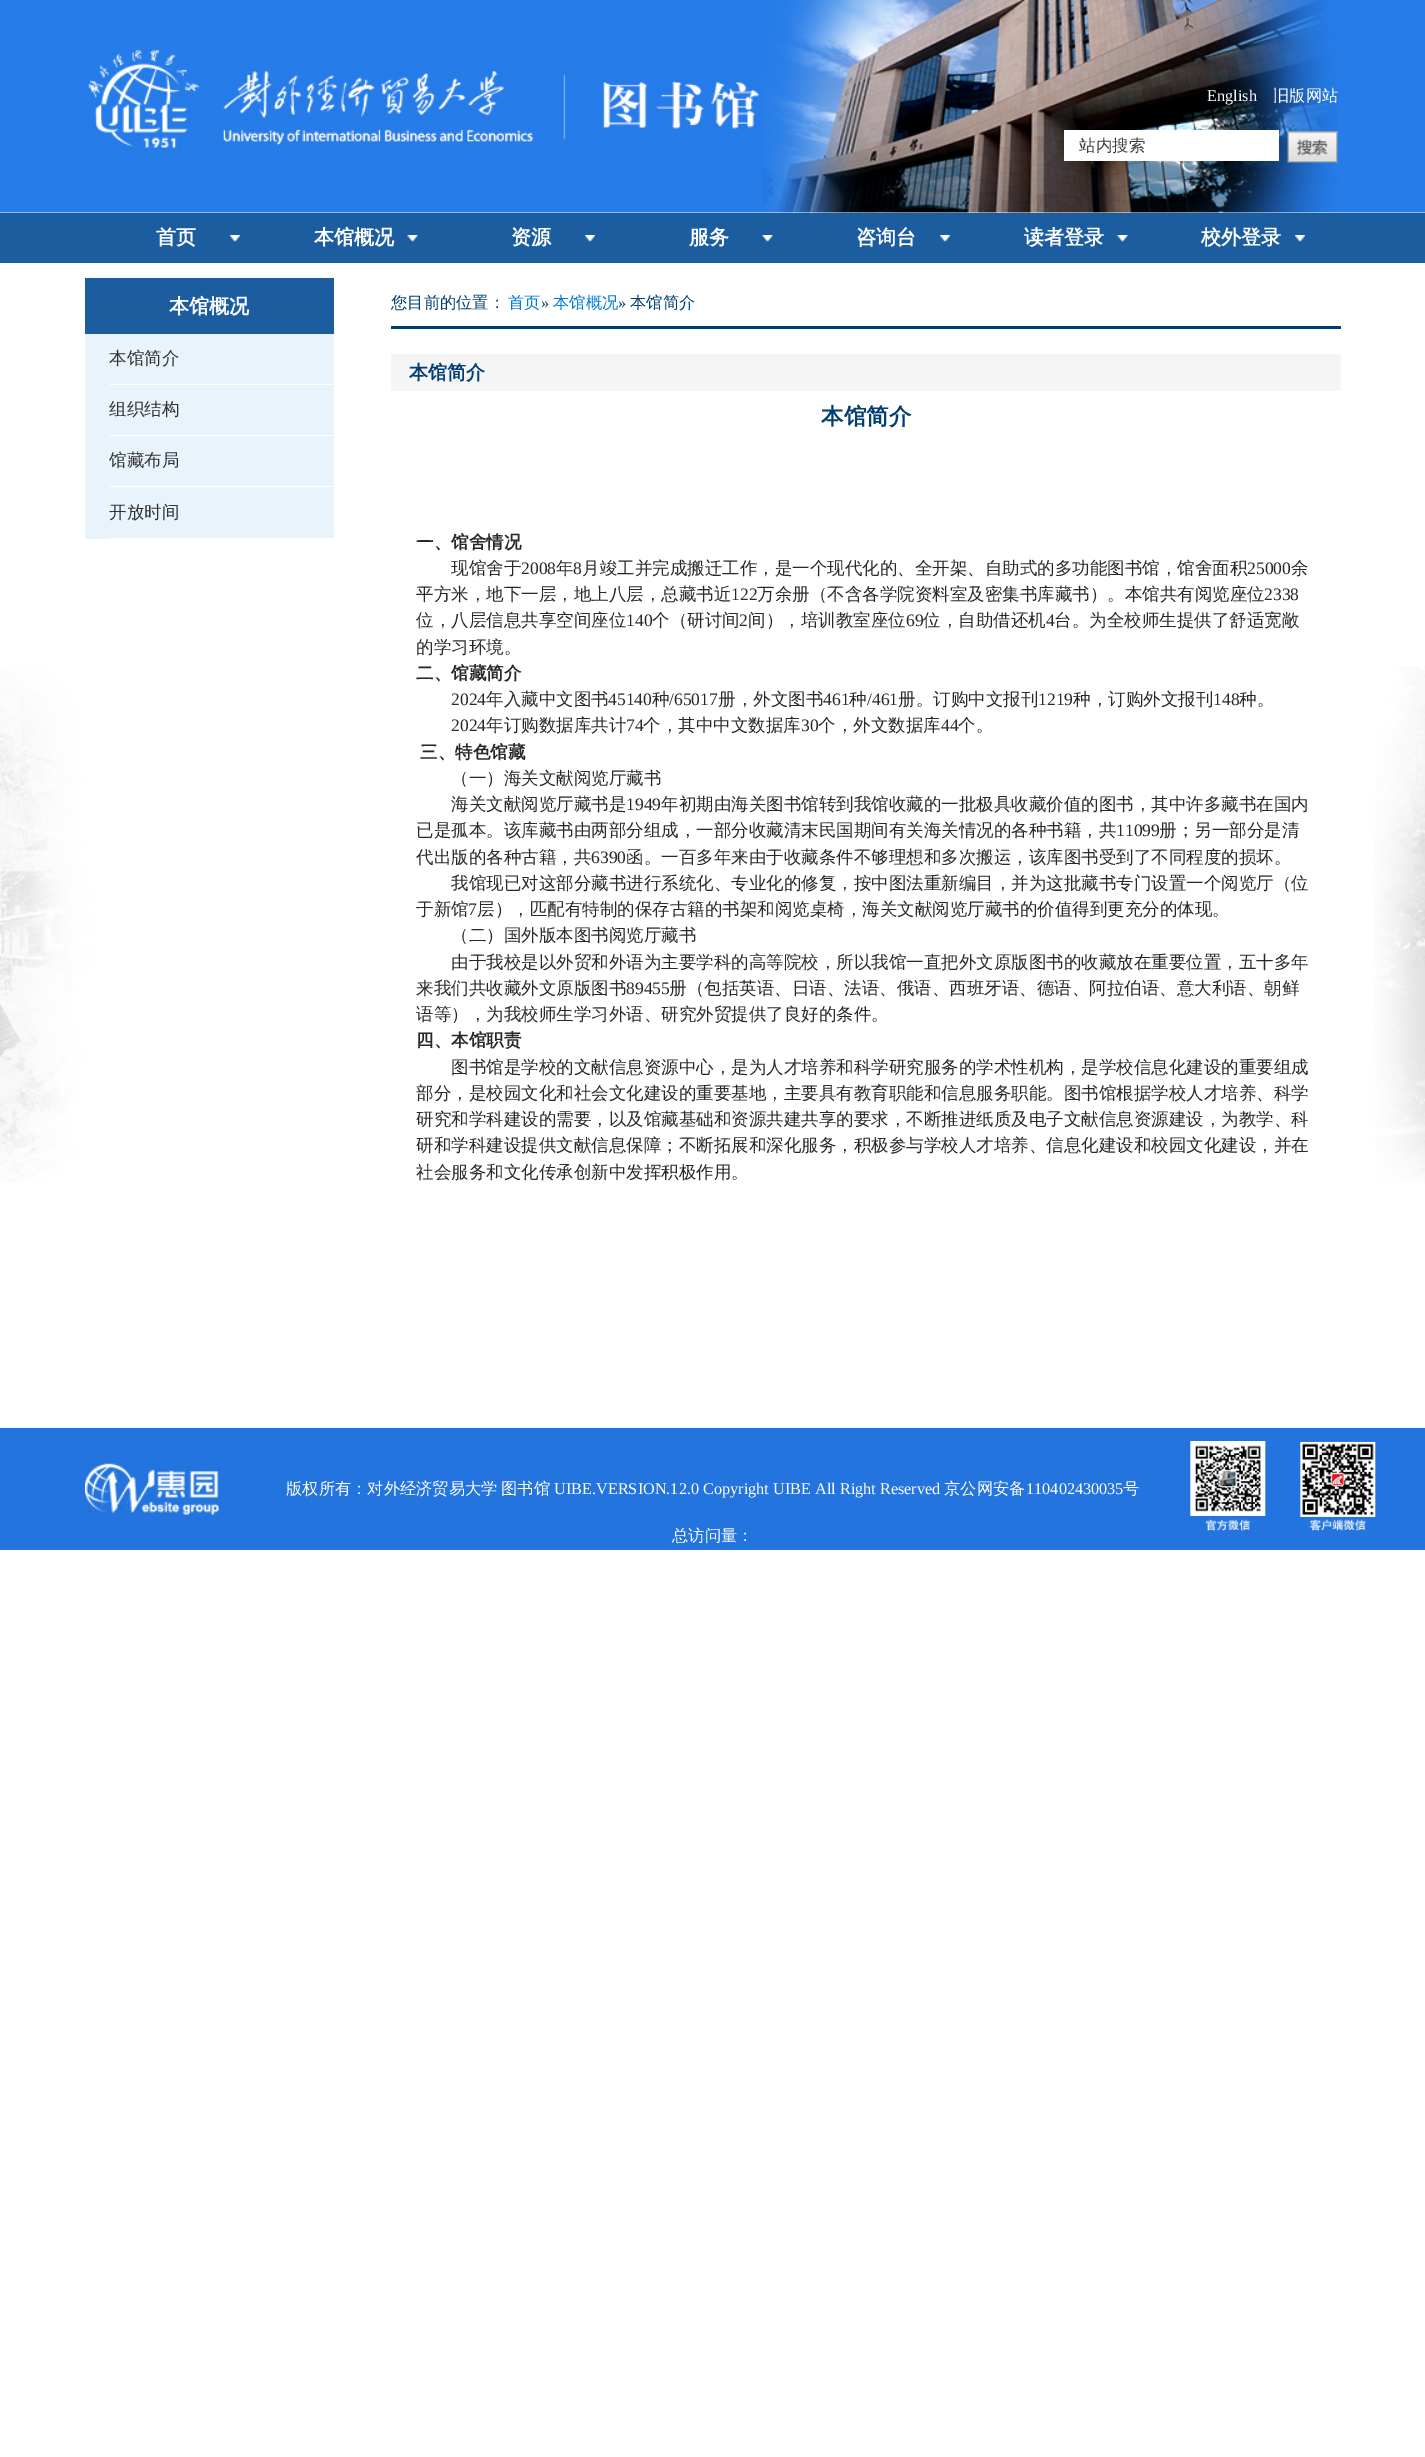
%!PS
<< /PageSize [1425 2457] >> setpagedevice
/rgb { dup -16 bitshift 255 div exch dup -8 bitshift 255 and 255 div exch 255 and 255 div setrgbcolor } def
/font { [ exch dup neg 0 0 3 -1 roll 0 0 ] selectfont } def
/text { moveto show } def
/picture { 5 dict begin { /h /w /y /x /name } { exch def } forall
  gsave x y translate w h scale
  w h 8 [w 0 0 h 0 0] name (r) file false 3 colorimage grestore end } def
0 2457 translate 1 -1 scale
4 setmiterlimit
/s1 { /LiberationSerif-Regular 16.25 font 16#FFFFFF rgb } def
/s2 { /WenQuanYiZenHei-Medium 16.25 font 16#FFFFFF rgb } def
/s3 { /WenQuanYiZenHei-Medium 16.5 font 16#3F3F3C rgb } def
/s4 { /WenQuanYiZenHei-Bold 20 font 16#FFFFFF rgb } def
/s5 { /WenQuanYiZenHei-Medium 17.5 font 16#323232 rgb } def
/s6 { /WenQuanYiZenHei-Medium 16.25 font 16#003E74 rgb } def
/s7 { /WenQuanYiZenHei-Medium 16.25 font 16#007CD2 rgb } def
/s8 { /LiberationSerif-Regular 16.25 font 16#003E74 rgb } def
/s9 { /WenQuanYiZenHei-Bold 19 font 16#003E74 rgb } def
/s10 { /WenQuanYiZenHei-Bold 22.5 font 16#003E74 rgb } def
/s11 { /WenQuanYiZenHei-Bold 17.5 font 16#282828 rgb } def
/s12 { /WenQuanYiZenHei-Medium 17.5 font 16#282828 rgb } def
/s13 { /LiberationSerif-Regular 17.5 font 16#282828 rgb } def
16#FFFFFF rgb
0 0 1425 2457 rectfill
(pic1.raw) 0 0 1425 213 picture
s1
(English) 1207 101 text
s2
(旧版网站) 1273 101 text
(pic2.raw) 1287 131 51 32 picture
1064 130 215 31 rectfill
s3
(站内搜索) 1079 151 text
16#1B5D9E rgb
0 213 1425 50 rectfill
(pic3.raw) 230 235 10 7 picture
s4
(首页) 156 244 text
(pic4.raw) 407 235 11 7 picture
(本馆概况) 314 244 text
(pic5.raw) 585 235 10 7 picture
(资源) 511 244 text
(pic4.raw) 762 235 11 7 picture
(服务) 689 244 text
(pic5.raw) 940 235 10 7 picture
(咨询台) 856 244 text
(pic4.raw) 1117 235 11 7 picture
(读者登录) 1024 244 text
(pic5.raw) 1295 235 10 7 picture
(校外登录) 1201 244 text
(pic6.raw) 0 666 1425 517 picture
16#1B5D9E rgb
85 278 249 56 rectfill
s4
(本馆概况) 169 313 text
16#E8F3FB rgb
85 334 249 205 rectfill
16#FFFFFF rgb
110 384 224 1 rectfill
s5
(本馆简介) 109 364 text
16#FFFFFF rgb
110 435 224 1 rectfill
s5
(组织结构) 109 415 text
16#FFFFFF rgb
110 486 224 1 rectfill
s5
(馆藏布局) 109 466 text
16#FFFFFF rgb
110 538 224 1 rectfill
s5
(开放时间) 109 518 text
16#003E74 rgb
391 326 950 3 rectfill
s6
(您目前的位置：) 391 308 text
s7
(首页) 508 308 text
s8
(») 541 308 text
s7
(本馆概况) 553 308 text
s8
(») 618 308 text
s6
(本馆简介) 630 308 text
16#F5F5F5 rgb
391 354 950 37 rectfill
s9
(本馆简介) 409 379 text
s10
(本馆简介) 821 424 text
s11
(一、馆舍情况) 416 548 text
s12
(现馆舍于) 451 574 text
s13
(2008) 521 574 text
s12
(年) 556 574 text
s13
(8) 573 574 text
s12
(月竣工并完成搬迁工作，是一个现代化的、全开架、自助式的多功能图书馆，馆舍面积) 582 574 text
s13
(25000) 1247 574 text
s12
(余) 1291 574 text
(平方米，地下一层，地上八层，总藏书近) 416 600 text
s13
(122) 731 600 text
s12
(万余册（不含各学院资料室及密集书库藏书）。本馆共有阅览座位) 757 600 text
s13
(2338) 1264 600 text
s12
(位，八层信息共享空间座位) 416 626 text
s13
(140) 626 626 text
s12
(个（研讨间) 652 626 text
s13
(2) 739 626 text
s12
(间），培训教室座位) 748 626 text
s13
(69) 906 626 text
s12
(位，自助借还机) 923 626 text
s13
(4) 1046 626 text
s12
(台。为全校师生提供了舒适宽敞) 1054 626 text
(的学习环境。) 416 653 text
s11
(二、馆藏简介) 416 679 text
s13
(2024) 451 705 text
s12
(年入藏中文图书) 486 705 text
s13
(45140) 608 705 text
s12
(种) 652 705 text
s13
(/65017) 669 705 text
s12
(册，外文图书) 718 705 text
s13
(461) 823 705 text
s12
(种) 849 705 text
s13
(/461) 867 705 text
s12
(册。订购中文报刊) 898 705 text
s13
(1219) 1038 705 text
s12
(种，订购外文报刊) 1073 705 text
s13
(148) 1213 705 text
s12
(种。) 1239 705 text
s13
(2024) 451 731 text
s12
(年订购数据库共计) 486 731 text
s13
(74) 626 731 text
s12
(个，其中中文数据库) 643 731 text
s13
(30) 801 731 text
s12
(个，外文数据库) 818 731 text
s13
(44) 941 731 text
s12
(个。) 958 731 text
s11
(三、特色馆藏) 420 758 text
s12
(（一）海关文献阅览厅藏书) 451 784 text
(海关文献阅览厅藏书是) 451 810 text
s13
(1949) 626 810 text
s12
(年初期由海关图书馆转到我馆收藏的一批极具收藏价值的图书，其中许多藏书在国内) 661 810 text
(已是孤本。该库藏书由两部分组成，一部分收藏清末民国期间有关海关情况的各种书籍，共) 416 836 text
s13
(11099) 1116 836 text
s12
(册；另一部分是清) 1159 836 text
(代出版的各种古籍，共) 416 863 text
s13
(6390) 591 863 text
s12
(函。一百多年来由于收藏条件不够理想和多次搬运，该库图书受到了不同程度的损坏。) 626 863 text
(我馆现已对这部分藏书进行系统化、专业化的修复，按中图法重新编目，并为这批藏书专门设置一个阅览厅（位) 451 889 text
(于新馆) 416 915 text
s13
(7) 468 915 text
s12
(层），匹配有特制的保存古籍的书架和阅览桌椅，海关文献阅览厅藏书的价值得到更充分的体现。) 477 915 text
(（二）国外版本图书阅览厅藏书) 451 941 text
(由于我校是以外贸和外语为主要学科的高等院校，所以我馆一直把外文原版图书的收藏放在重要位置，五十多年) 451 968 text
(来我们共收藏外文原版图书) 416 994 text
s13
(89455) 626 994 text
s12
(册（包括英语、日语、法语、俄语、西班牙语、德语、阿拉伯语、意大利语、朝鲜) 669 994 text
(语等），为我校师生学习外语、研究外贸提供了良好的条件。) 416 1020 text
s11
(四、本馆职责) 416 1046 text
s12
(图书馆是学校的文献信息资源中心，是为人才培养和科学研究服务的学术性机构，是学校信息化建设的重要组成) 451 1073 text
(部分，是校园文化和社会文化建设的重要基地，主要具有教育职能和信息服务职能。图书馆根据学校人才培养、科学) 416 1099 text
(研究和学科建设的需要，以及馆藏基础和资源共建共享的要求，不断推进纸质及电子文献信息资源建设，为教学、科) 416 1125 text
(研和学科建设提供文献信息保障；不断拓展和深化服务，积极参与学校人才培养、信息化建设和校园文化建设，并在) 416 1151 text
(社会服务和文化传承创新中发挥积极作用。) 416 1178 text
16#2374DE rgb
0 1428 1425 122 rectfill
(pic7.raw) 85 1463 134 52 picture
s2
(版权所有：对外经济贸易大学) 286 1494 text
(图书馆) 501 1494 text
s1
(UIBE.VERSION.12.0 Copyright UIBE All Right Reserved) 554 1494 text
s2
(京公网安备) 944 1494 text
s1
(110402430035) 1026 1494 text
s2
(号) 1123 1494 text
(pic8.raw) 1190 1441 76 90 picture
(pic9.raw) 1300 1441 76 90 picture
(总访问量：) 672 1541 text
showpage
